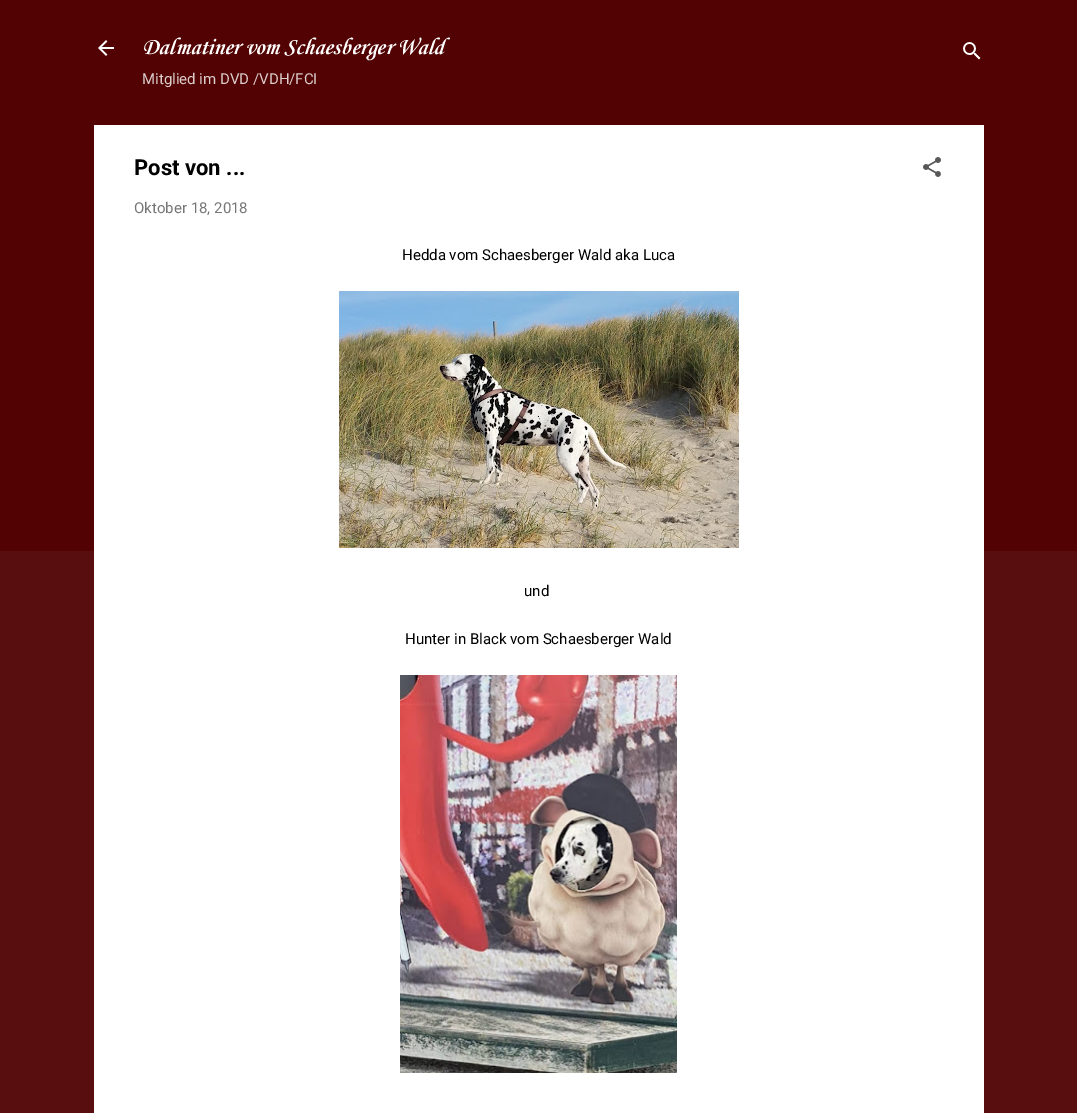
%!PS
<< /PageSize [1077 1113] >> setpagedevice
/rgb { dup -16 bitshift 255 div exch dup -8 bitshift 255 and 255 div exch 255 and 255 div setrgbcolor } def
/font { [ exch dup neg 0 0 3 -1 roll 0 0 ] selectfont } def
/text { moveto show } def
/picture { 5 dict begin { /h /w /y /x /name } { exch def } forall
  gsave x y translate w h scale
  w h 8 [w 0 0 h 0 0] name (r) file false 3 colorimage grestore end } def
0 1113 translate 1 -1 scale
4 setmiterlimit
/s1 { /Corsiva-BoldItalic 24 font 16#FFFFFF rgb } def
/s2 { /Roboto-Regular 15 font 16#DCCCCC rgb } def
/s3 { /Roboto-Bold 22 font 16#000000 rgb } def
/s4 { /Roboto-Regular 15 font 16#767676 rgb } def
/s5 { /Roboto-Regular 15 font 16#000000 rgb } def
16#580E0E rgb
0 0 1077 1113 rectfill
16#520202 rgb
0 0 1077 551 rectfill
(pic1.raw) 98 40 16 16 picture
s1
(Dalmatiner vom Schaesberger Wald) 142 54 text
s2
(Mitglied im DVD /VDH/FCI) 142 84 text
(pic2.raw) 963 42 18 18 picture
16#FFFFFF rgb
94 125 890 988 rectfill
s3
(Post von ...) 134 175 text
(pic3.raw) 923 157 18 20 picture
s4
(Oktober 18, 2018) 134 213 text
s5
(Hedda vom Schaesberger Wald aka Luca) 402 260 text
(pic4.raw) 339 291 400 257 picture
(und) 524 596 text
(Hunter in Black vom Schaesberger Wald) 405 644 text
(pic5.raw) 400 675 277 398 picture
showpage
